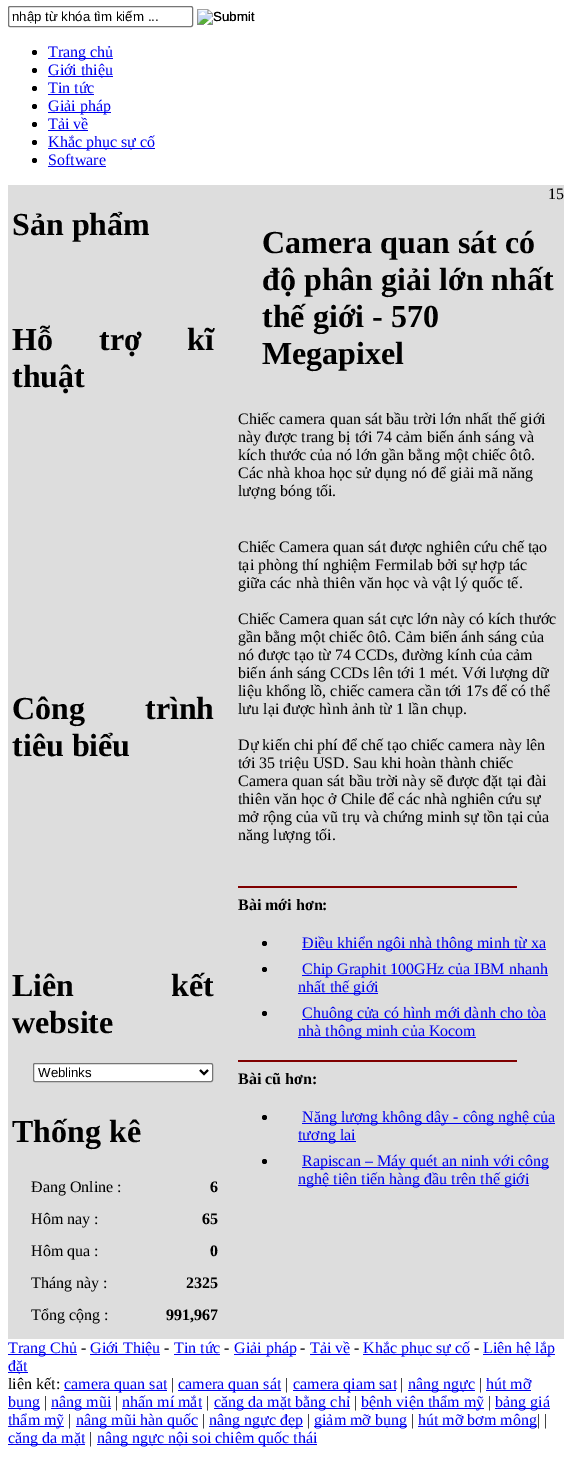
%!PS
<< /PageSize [572 1471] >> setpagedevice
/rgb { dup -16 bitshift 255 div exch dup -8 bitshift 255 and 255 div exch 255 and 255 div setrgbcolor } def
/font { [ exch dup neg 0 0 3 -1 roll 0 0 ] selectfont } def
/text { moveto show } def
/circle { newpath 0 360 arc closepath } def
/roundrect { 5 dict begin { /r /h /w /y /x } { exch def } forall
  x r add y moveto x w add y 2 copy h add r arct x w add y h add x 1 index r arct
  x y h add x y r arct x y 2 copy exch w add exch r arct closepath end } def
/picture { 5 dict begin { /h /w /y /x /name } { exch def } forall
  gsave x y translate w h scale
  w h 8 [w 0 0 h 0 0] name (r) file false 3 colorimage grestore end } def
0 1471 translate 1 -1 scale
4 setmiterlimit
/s1 { /LiberationSans-Regular 13.25 font 16#000000 rgb } def
/s2 { /LiberationSerif-Regular 16 font 16#0000EE rgb } def
/s3 { /LiberationSerif-Bold 32 font 16#000000 rgb } def
/s4 { /LiberationSerif-Regular 16 font 16#000000 rgb } def
/s5 { /LiberationSerif-Bold 16 font 16#000000 rgb } def
16#FFFFFF rgb
0 0 572 1471 rectfill
16#767676 rgb
8.5 6.5 184 20 1.5 roundrect stroke
s1
(nhập từ khóa tìm kiếm ...) 12 21 text
(pic1.raw) 197 9 57 16 picture
(Submit) 213 21 text
34.5 52.5 2.5 circle fill
16#0000EE rgb
48 58 65 1 rectfill
s2
(Trang chủ) 48 57 text
16#000000 rgb
34.5 70.5 2.5 circle fill
16#0000EE rgb
48 76 65 1 rectfill
(Giới thiệu) 48 75 text
16#000000 rgb
34.5 88.5 2.5 circle fill
s2
(Tin tức) 48 93 text
48 94 46 1 rectfill
16#000000 rgb
34.5 106.5 2.5 circle fill
16#0000EE rgb
48 112 63 1 rectfill
(Giải pháp) 48 111 text
16#000000 rgb
34.5 124.5 2.5 circle fill
s2
(Tải về) 48 129 text
48 130 40 1 rectfill
16#000000 rgb
34.5 142.5 2.5 circle fill
16#0000EE rgb
48 148 107 1 rectfill
(Khắc phục sự cố) 48 147 text
16#000000 rgb
34.5 160.5 2.5 circle fill
s2
(Software) 48 165 text
48 166 58 1 rectfill
16#DDDDDD rgb
8 185 556 1154 rectfill
s3
(Sản phẩm) 12 235 text
12 350 moveto 38 0 32 (Hỗ trợ kĩ) widthshow
(thuật) 12 387 text
12 719 moveto 52 0 32 (Công trình) widthshow
(tiêu biểu) 12 756 text
12 996 moveto 89 0 32 (Liên kết) widthshow
(website) 12 1033 text
16#FFFFFF rgb
33.5 1063.5 179 18 1.5 roundrect gsave fill grestore
16#767676 rgb
stroke
16#000000 rgb
2 setlinewidth
200 1070 moveto 204 1074 lineto 208 1070 lineto stroke
s1
(Weblinks) 38 1077 text
s3
(Thống kê) 12 1142 text
s4
(Đang Online :) 31 1192 text
s5
(6) 210 1192 text
s4
(Hôm nay :) 31 1224 text
s5
(65) 202 1224 text
s4
(Hôm qua :) 31 1256 text
s5
(0) 210 1256 text
s4
(Tháng này :) 31 1288 text
s5
(2325) 186 1288 text
s4
(Tổng cộng :) 31 1320 text
s5
(991,967) 166 1320 text
s4
(15) 548 199 text
s3
(Camera quan sát có) 262 253 text
(độ phân giải lớn nhất) 262 290 text
(thế giới - 570) 262 327 text
(Megapixel) 262 364 text
s4
(Chiếc camera quan sát bầu trời lớn nhất thế giới) 238 424 text
(này được trang bị tới 74 cảm biến ánh sáng và) 238 442 text
(kích thước của nó lớn gần bằng một chiếc ôtô.) 238 460 text
(Các nhà khoa học sử dụng nó để giải mã năng) 238 478 text
(lượng bóng tối.) 238 496 text
(Chiếc Camera quan sát được nghiên cứu chế tạo) 238 552 text
(tại phòng thí nghiệm Fermilab bởi sự hợp tác) 238 570 text
(giữa các nhà thiên văn học và vật lý quốc tế.) 238 588 text
(Chiếc Camera quan sát cực lớn này có kích thước) 238 624 text
(gần bằng một chiếc ôtô. Cảm biến ánh sáng của) 238 642 text
(nó được tạo từ 74 CCDs, đường kính của cảm) 238 660 text
(biến ánh sáng CCDs lên tới 1 mét. Với lượng dữ) 238 678 text
(liệu khổng lồ, chiếc camera cần tới 17s để có thể) 238 696 text
(lưu lại được hình ảnh từ 1 lần chụp.) 238 714 text
(Dự kiến chi phí để chế tạo chiếc camera này lên) 238 750 text
(tới 35 triệu USD. Sau khi hoàn thành chiếc) 238 768 text
(Camera quan sát bầu trời này sẽ được đặt tại đài) 238 786 text
(thiên văn học ở Chile để các nhà nghiên cứu sự) 238 804 text
(mở rộng của vũ trụ và chứng minh sự tồn tại của) 238 822 text
(năng lượng tối.) 238 840 text
16#800000 rgb
238 886 279 2 rectfill
s5
(Bài mới hơn:) 238 910 text
264.5 943.5 2.5 circle fill
16#0000EE rgb
302 949 244 1 rectfill
s2
(Điều khiển ngôi nhà thông minh từ xa) 302 948 text
16#000000 rgb
264.5 969.5 2.5 circle fill
16#0000EE rgb
302 975 246 1 rectfill
(Chip Graphit 100GHz của IBM nhanh) 302 974 text
298 993 80 1 rectfill
(nhất thế giới) 298 992 text
16#000000 rgb
264.5 1013.5 2.5 circle fill
16#0000EE rgb
302 1019 244 1 rectfill
(Chuông cửa có hình mới dành cho tòa) 302 1018 text
298 1037 178 1 rectfill
(nhà thông minh của Kocom) 298 1036 text
16#800000 rgb
238 1060 279 2 rectfill
s5
(Bài cũ hơn:) 238 1084 text
264.5 1117.5 2.5 circle fill
16#0000EE rgb
302 1123 253 1 rectfill
s2
(Năng lượng không dây - công nghệ của) 302 1122 text
298 1141 58 1 rectfill
(tương lai) 298 1140 text
16#000000 rgb
264.5 1161.5 2.5 circle fill
16#0000EE rgb
302 1167 247 1 rectfill
(Rapiscan – Máy quét an ninh với công) 302 1166 text
298 1185 231 1 rectfill
(nghệ tiên tiến hàng đầu trên thế giới) 298 1184 text
8 1354 69 1 rectfill
(Trang Chủ) 8 1353 text
s4
(-) 81 1353 text
16#0000EE rgb
90 1354 70 1 rectfill
(Giới Thiệu) 90 1353 text
s4
(-) 164 1353 text
s2
(Tin tức) 174 1353 text
174 1354 46 1 rectfill
s4
(-) 224 1353 text
16#0000EE rgb
234 1354 62 1 rectfill
(Giải pháp) 234 1353 text
s4
(-) 300 1353 text
s2
(Tải về) 310 1353 text
310 1354 40 1 rectfill
s4
(-) 354 1353 text
16#0000EE rgb
363 1354 107 1 rectfill
(Khắc phục sự cố) 363 1353 text
s4
(-) 474 1353 text
16#0000EE rgb
483 1354 72 1 rectfill
(Liên hệ lắp) 483 1353 text
8 1372 20 1 rectfill
(đặt) 8 1371 text
s4
(liên kết:) 8 1389 text
16#0000EE rgb
64 1390 103 1 rectfill
(camera quan sat) 64 1389 text
s4
(|) 171 1389 text
16#0000EE rgb
178 1390 103 1 rectfill
(camera quan sát) 178 1389 text
s4
(|) 285 1389 text
16#0000EE rgb
293 1390 103 1 rectfill
(camera qiam sat) 293 1389 text
s4
(|) 400 1389 text
16#0000EE rgb
408 1390 67 1 rectfill
(nâng ngực) 408 1389 text
s4
(|) 479 1389 text
s2
(hút mỡ) 486 1389 text
486 1390 45 1 rectfill
8 1408 32 1 rectfill
(bụng) 8 1407 text
s4
(|) 44 1407 text
16#0000EE rgb
51 1408 60 1 rectfill
(nâng mũi) 51 1407 text
s4
(|) 115 1407 text
s2
(nhấn mí mắt) 122 1407 text
122 1408 80 1 rectfill
s4
(|) 206 1407 text
16#0000EE rgb
214 1408 136 1 rectfill
(căng da mặt bằng chỉ) 214 1407 text
s4
(|) 354 1407 text
16#0000EE rgb
361 1408 123 1 rectfill
(bệnh viện thẩm mỹ) 361 1407 text
s4
(|) 488 1407 text
16#0000EE rgb
495 1408 55 1 rectfill
(bảng giá) 495 1407 text
8 1426 56 1 rectfill
(thẩm mỹ) 8 1425 text
s4
(|) 68 1425 text
16#0000EE rgb
76 1426 122 1 rectfill
(nâng mũi hàn quốc) 76 1425 text
s4
(|) 202 1425 text
16#0000EE rgb
209 1426 94 1 rectfill
(nâng ngực đẹp) 209 1425 text
s4
(|) 307 1425 text
16#0000EE rgb
314 1426 93 1 rectfill
(giảm mỡ bụng) 314 1425 text
s4
(|) 411 1425 text
16#0000EE rgb
418 1426 119 1 rectfill
(hút mỡ bơm mông) 418 1425 text
s4
(| |) 537 1425 text
16#0000EE rgb
8 1444 77 1 rectfill
(căng da mặt) 8 1443 text
s4
(|) 89 1443 text
16#0000EE rgb
97 1444 220 1 rectfill
(nâng ngực nội soi chiêm quốc thái) 97 1443 text
showpage
